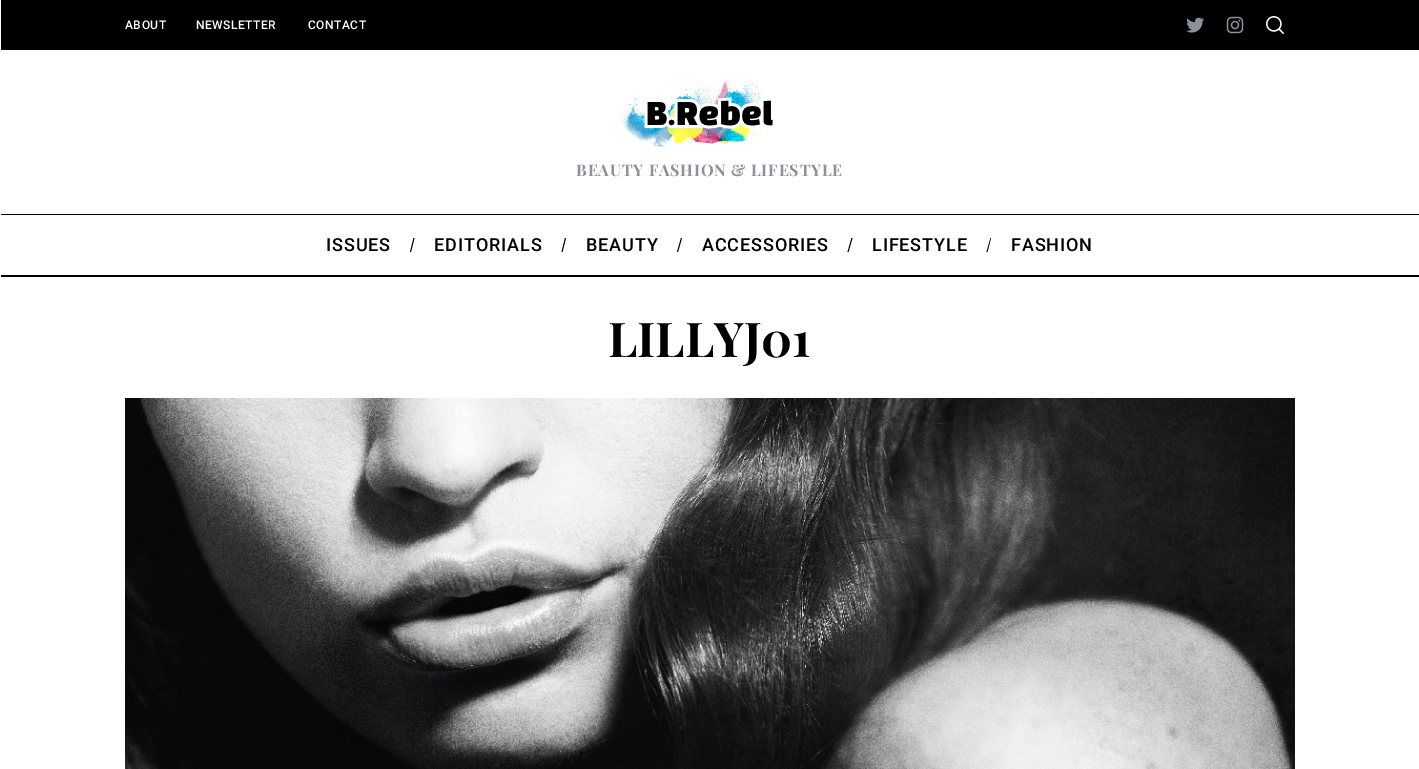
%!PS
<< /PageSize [1419 769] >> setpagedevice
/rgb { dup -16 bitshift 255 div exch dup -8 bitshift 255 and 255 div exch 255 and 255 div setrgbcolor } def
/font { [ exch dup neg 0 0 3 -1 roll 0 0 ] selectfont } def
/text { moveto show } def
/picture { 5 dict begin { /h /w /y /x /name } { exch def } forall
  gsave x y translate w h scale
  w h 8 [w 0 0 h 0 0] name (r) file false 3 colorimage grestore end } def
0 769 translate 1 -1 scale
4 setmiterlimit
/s1 { /PlayfairDisplay-Bold 48 font 16#000000 rgb } def
16#FFFFFF rgb
0 0 1419 769 rectfill
16#000000 rgb
1 0 1418 50 rectfill
/Roboto-Medium 12 font
16#FFFFFF rgb
125 29 moveto 0.5 0 (ABOUT) ashow
196 29 moveto 0.5 0 (NEWSLETTER) ashow
308 29 moveto 0.5 0 (CONTACT) ashow
(pic1.raw) 1186 17 19 16 picture
(pic2.raw) 1226 16 18 18 picture
(pic3.raw) 1266 16 18 18 picture
(pic4.raw) 605 80 168 67 picture
/PlayfairDisplay-Bold 16 font
16#8C919B rgb
576 176 moveto 0.8 0 (BEAUTY FASHION & LIFESTYLE) ashow
16#000000 rgb
0 214 1419 1 rectfill
0 275 1419 2 rectfill
16#FFFFFF rgb
0 214 1 63 rectfill
/Roboto-Medium 18 font
16#000000 rgb
326 251 moveto 0.9 0 (ISSUES) ashow
413.5 238 moveto 414.5 238 lineto 411 252 lineto 410 252 lineto closepath fill
434 251 moveto 0.9 0 (EDITORIALS) ashow
565 238 moveto 566 238 lineto 562.5 252 lineto 561.5 252 lineto closepath fill
586 251 moveto 0.9 0 (BEAUTY) ashow
681 238 moveto 682 238 lineto 678 252 lineto 677 252 lineto closepath fill
702 251 moveto 0.9 0 (ACCESSORIES) ashow
851.5 238 moveto 852.5 238 lineto 848.5 252 lineto 847.5 252 lineto closepath fill
872 251 moveto 0.9 0 (LIFESTYLE) ashow
990.5 238 moveto 991 238 lineto 987.5 252 lineto 986.5 252 lineto closepath fill
1011 251 moveto 0.9 0 (FASHION) ashow
s1
(LILLYJ01) 608 357 text
(pic5.raw) 125 398 1170 371 picture
showpage
